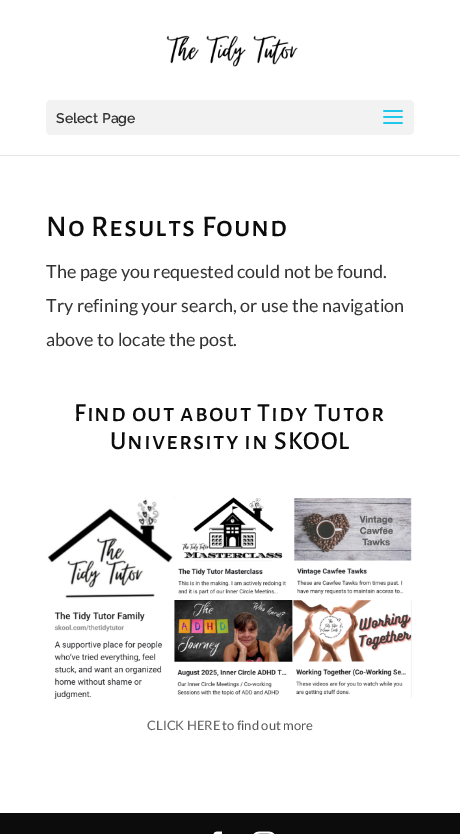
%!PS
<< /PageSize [460 834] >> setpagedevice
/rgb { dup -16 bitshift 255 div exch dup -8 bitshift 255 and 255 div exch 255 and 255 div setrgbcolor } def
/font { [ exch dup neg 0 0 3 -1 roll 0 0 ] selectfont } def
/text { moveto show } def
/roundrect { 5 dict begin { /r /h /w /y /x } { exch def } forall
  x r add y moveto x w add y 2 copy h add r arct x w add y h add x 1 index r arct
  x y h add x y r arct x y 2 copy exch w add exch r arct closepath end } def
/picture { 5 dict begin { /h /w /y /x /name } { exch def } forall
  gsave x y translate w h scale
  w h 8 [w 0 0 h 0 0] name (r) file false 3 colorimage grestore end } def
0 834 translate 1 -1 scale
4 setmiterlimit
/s1 { /Raleway-Thin 14 font 16#333333 rgb } def
/s2 { /Lato-Regular 18 font 16#333333 rgb } def
/s3 { /Lato-Regular 13 font 16#666666 rgb } def
/s4 { /Lato-Regular 13 font 16#555555 rgb } def
16#FFFFFF rgb
0 0 460 834 rectfill
16#E6E6E6 rgb
0 155 460 1 rectfill
(pic1.raw) 166 35 132 32 picture
16#F2F2F2 rgb
46 100 368 35 5 roundrect fill
s1
(Select Page) 56 123 text
(pic2.raw) 383 110 20 14 picture
/AlegreyaSansSC-Medium 30 font
16#0C0C0C rgb
46 236 moveto 1 0 (No Results Found) ashow
s2
(The page you requested could not be found.) 46 278 text
(Try refining your search, or use the navigation) 46 312 text
(above to locate the post.) 46 346 text
/AlegreyaSansSC-Medium 26 font
16#0C0C0C rgb
74 421 moveto 1 0 (Find out about Tidy Tutor) ashow
110 449 moveto 1 0 (University in SKOOL) ashow
(pic3.raw) 47 497 365 202 picture
s3
(CLICK HERE) 147 730 text
s4
(to find out more) 222 730 text
16#0C0C0C rgb
0 813 460 21 rectfill
(pic4.raw) 213 831 10 3 picture
(pic5.raw) 253 831 22 3 picture
showpage
